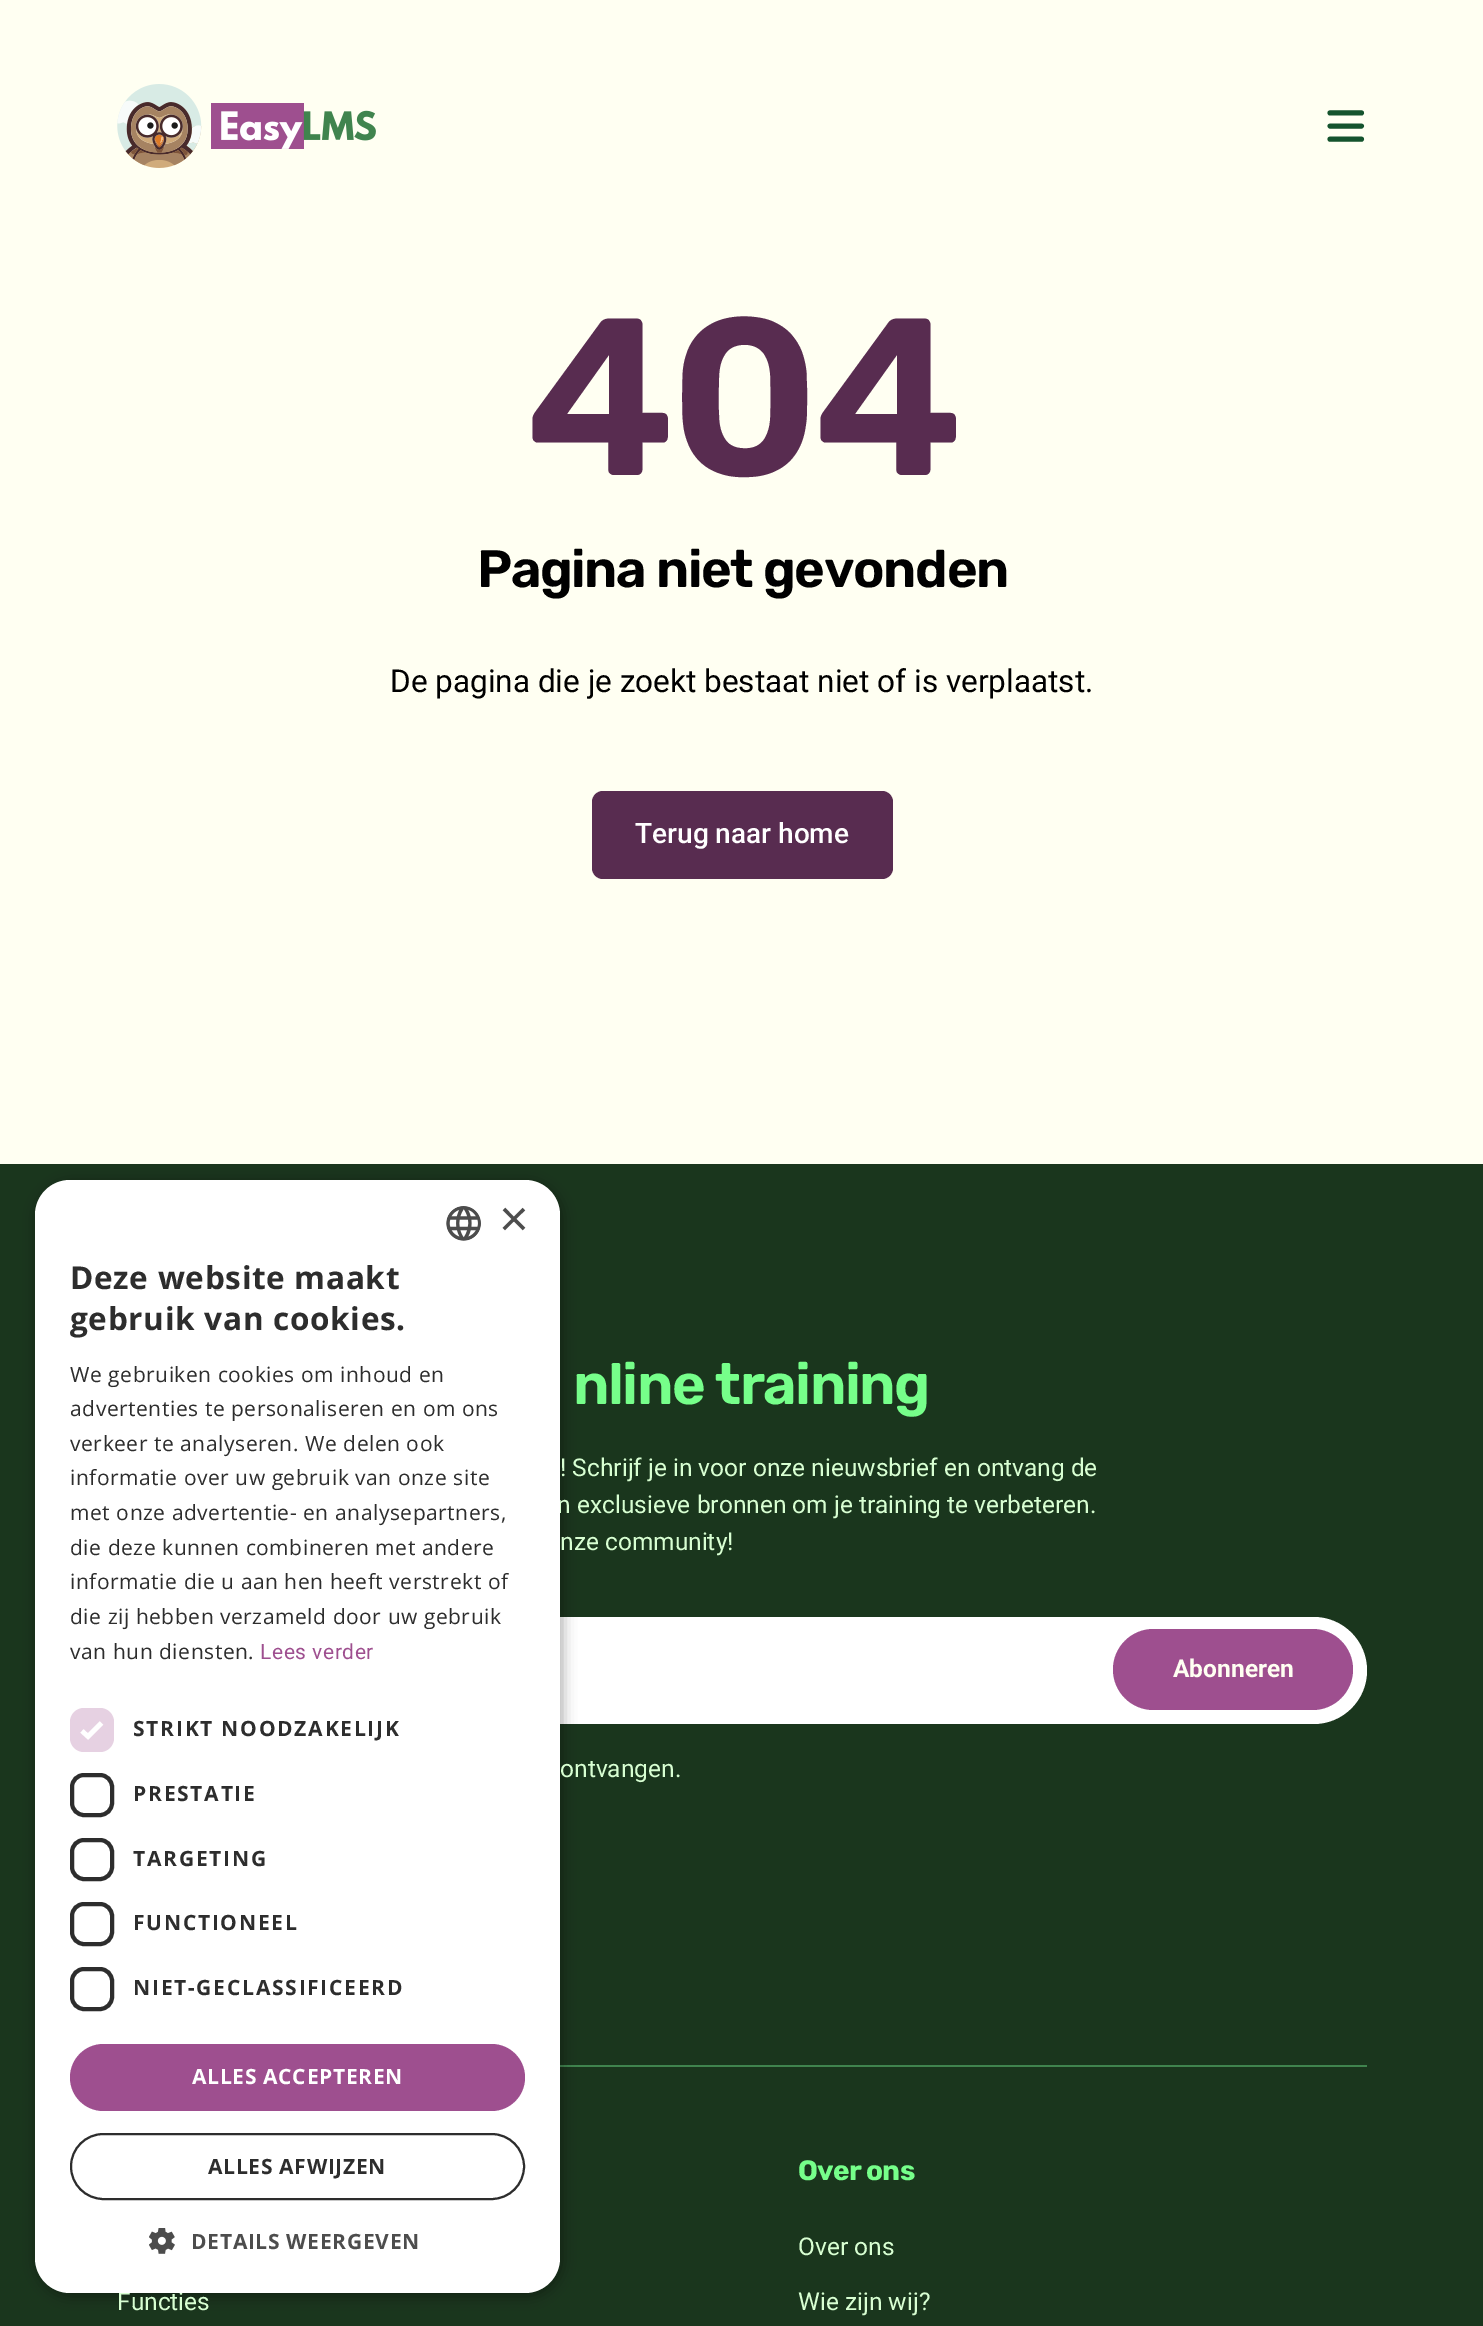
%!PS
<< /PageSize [1483 2326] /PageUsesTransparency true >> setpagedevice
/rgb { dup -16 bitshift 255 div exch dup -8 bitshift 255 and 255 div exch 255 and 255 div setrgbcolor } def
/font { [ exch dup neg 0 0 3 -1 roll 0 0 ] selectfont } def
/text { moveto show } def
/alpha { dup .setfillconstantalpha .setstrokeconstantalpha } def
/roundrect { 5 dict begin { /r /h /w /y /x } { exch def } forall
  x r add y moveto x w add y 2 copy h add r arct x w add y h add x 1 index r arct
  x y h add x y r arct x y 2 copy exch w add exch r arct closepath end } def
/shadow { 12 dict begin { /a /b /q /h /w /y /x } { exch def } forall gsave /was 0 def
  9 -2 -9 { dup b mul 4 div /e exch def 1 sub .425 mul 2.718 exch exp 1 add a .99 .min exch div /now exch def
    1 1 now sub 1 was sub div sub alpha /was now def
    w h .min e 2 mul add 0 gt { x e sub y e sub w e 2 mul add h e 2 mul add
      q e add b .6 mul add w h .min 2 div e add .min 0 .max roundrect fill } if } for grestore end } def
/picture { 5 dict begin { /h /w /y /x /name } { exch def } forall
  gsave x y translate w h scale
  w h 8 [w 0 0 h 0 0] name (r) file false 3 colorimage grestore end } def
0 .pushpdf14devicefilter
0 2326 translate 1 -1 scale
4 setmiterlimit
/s1 { /Roboto-Regular 31.5 font 16#000000 rgb } def
/s2 { /Roboto-Medium 28 font 16#FFFFFF rgb } def
/s3 { /Roboto-Regular 24.5 font 16#D8FFD2 rgb } def
/s4 { /LiberationSans-Regular 51 font 16#4D4D4D rgb } def
/s5 { /Roboto-Bold 24.5 font 16#FFFFF2 rgb } def
16#FFFFF2 rgb
0 0 1483 2326 rectfill
(pic1.raw) 117 84 259 84 picture
(pic2.raw) 1327 110 38 32 picture
/Rubik-SemiBold 224 font
16#582C50 rgb
526 475 moveto -5.5 0 (404) ashow
/Rubik-SemiBold 52.5 font
16#000000 rgb
477 587 moveto -1.3 0 (Pagina niet gevonden) ashow
s1
(De pagina die je zoekt bestaat niet of is verplaatst.) 390 692 text
16#582C50 rgb
592 791 301 88 11 roundrect fill
s2
(Terug naar home) 635 843 text
16#1A361D rgb
0 1164 1483 1162 rectfill
16#FFFFFF rgb
117 1617 1250 107 53.5 roundrect fill
16#40844E rgb
560 2065 807 2 rectfill
16#000000 rgb
37 1183 525 1113 35 7 0.35 shadow
s3
(n exclusieve bronnen om je training te verbeteren.) 557 1513 text
(Functies) 117 2310 text
16#FFFFFF rgb
35 1180 525 1113 35 roundrect fill
(pic3.raw) 446 1206 35 35 picture
s4
(×) 499 1236 text
/OpenSans-Bold 31.5 font
16#2D2D2D rgb
70 1289 moveto 0.7 0 (Deze website maakt) ashow
70 1330 moveto 0.7 0 (gebruik van cookies.) ashow
/OpenSans-Regular 21 font
70 1382 moveto 0.55 0 (We gebruiken cookies om inhoud en) ashow
70 1416 moveto 0.55 0 (advertenties te personaliseren en om ons) ashow
70 1451 moveto 0.55 0 (verkeer te analyseren. We delen ook) ashow
70 1485 moveto 0.55 0 (informatie over uw gebruik van onze site) ashow
70 1520 moveto 0.55 0 (met onze advertentie- en analysepartners,) ashow
70 1555 moveto 0.55 0 (die deze kunnen combineren met andere) ashow
70 1589 moveto 0.55 0 (informatie die u aan hen heeft verstrekt of) ashow
70 1624 moveto 0.55 0 (die zij hebben verzameld door uw gebruik) ashow
70 1659 moveto 0.55 0 (van hun diensten.) ashow
/Roboto-Regular 21 font
16#9E4F8F rgb
260 1659 moveto 0.55 0 (Lees verder) ashow
16#E6D1E2 rgb
70 1708 44 44 14 roundrect fill
16#FFFFFF rgb
4.6 setlinewidth
82 1731 moveto 88 1736.5 lineto 101.5 1723 lineto stroke
/OpenSans-Bold 21 font
16#2D2D2D rgb
133 1736 moveto 1.75 0 (STRIKT NOODZAKELIJK) ashow
4 setlinewidth
72 1775 40 40 12 roundrect stroke
133 1801 moveto 1.75 0 (PRESTATIE) ashow
72 1840 40 39 12 roundrect stroke
133 1866 moveto 1.75 0 (TARGETING) ashow
72 1904 40 40 12 roundrect stroke
133 1930 moveto 1.75 0 (FUNCTIONEEL) ashow
72 1969 40 40 12 roundrect stroke
133 1995 moveto 1.75 0 (NIET-GECLASSIFICEERD) ashow
16#9E4F8F rgb
70 2044 455 67 33.5 roundrect fill
16#FFFFFF rgb
192 2084 moveto 0.7 0 (ALLES ACCEPTEREN) ashow
16#2D2D2D rgb
2 setlinewidth
71 2134 453 65 32.5 roundrect stroke
208 2174 moveto 0.7 0 (ALLES AFWIJZEN) ashow
(pic4.raw) 149 2228 26 26 picture
16#4D4D4D rgb
191 2249 moveto 0.7 0 (DETAILS WEERGEVEN) ashow
/Rubik-SemiBold 57.75 font
16#76FF8A rgb
573 1404 moveto -1.5 0 (nline training) ashow
s3
(! Schrijf je in voor onze nieuwsbrief en ontvang de) 560 1476 text
(nze community!) 560 1550 text
16#9E4F8F rgb
1113 1629 240 81 40.5 roundrect fill
s5
(Abonneren) 1173 1677 text
s3
(ontvangen.) 560 1777 text
/Rubik-Bold 28 font
16#76FF8A rgb
798 2180 moveto -0.75 0 (Over ons) ashow
s3
(Over ons) 798 2255 text
(Wie zijn wij?) 798 2310 text
.poppdf14devicefilter showpage
